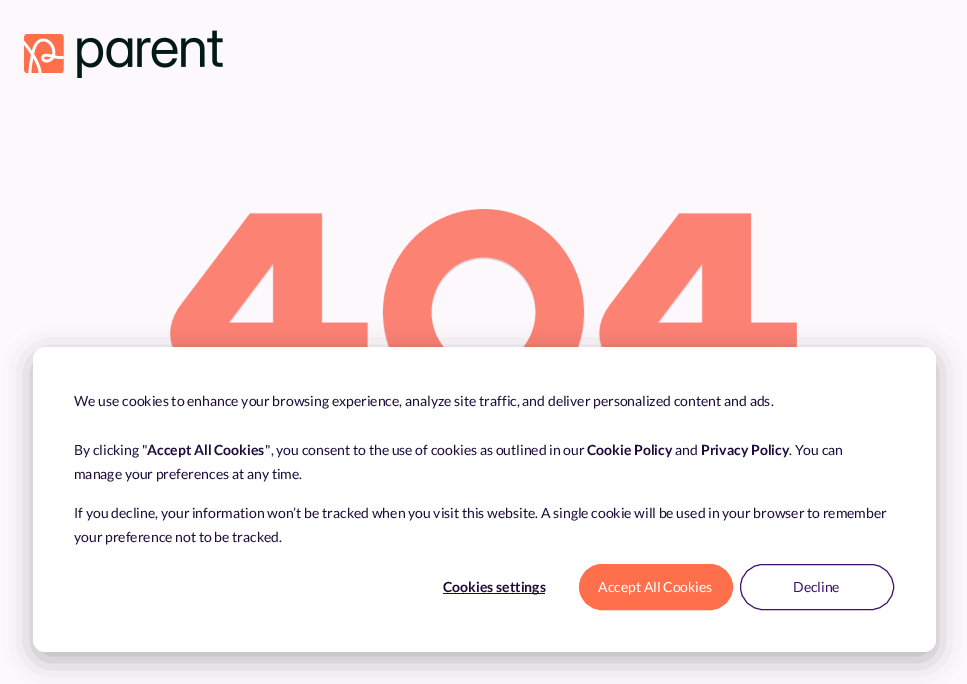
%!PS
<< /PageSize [967 684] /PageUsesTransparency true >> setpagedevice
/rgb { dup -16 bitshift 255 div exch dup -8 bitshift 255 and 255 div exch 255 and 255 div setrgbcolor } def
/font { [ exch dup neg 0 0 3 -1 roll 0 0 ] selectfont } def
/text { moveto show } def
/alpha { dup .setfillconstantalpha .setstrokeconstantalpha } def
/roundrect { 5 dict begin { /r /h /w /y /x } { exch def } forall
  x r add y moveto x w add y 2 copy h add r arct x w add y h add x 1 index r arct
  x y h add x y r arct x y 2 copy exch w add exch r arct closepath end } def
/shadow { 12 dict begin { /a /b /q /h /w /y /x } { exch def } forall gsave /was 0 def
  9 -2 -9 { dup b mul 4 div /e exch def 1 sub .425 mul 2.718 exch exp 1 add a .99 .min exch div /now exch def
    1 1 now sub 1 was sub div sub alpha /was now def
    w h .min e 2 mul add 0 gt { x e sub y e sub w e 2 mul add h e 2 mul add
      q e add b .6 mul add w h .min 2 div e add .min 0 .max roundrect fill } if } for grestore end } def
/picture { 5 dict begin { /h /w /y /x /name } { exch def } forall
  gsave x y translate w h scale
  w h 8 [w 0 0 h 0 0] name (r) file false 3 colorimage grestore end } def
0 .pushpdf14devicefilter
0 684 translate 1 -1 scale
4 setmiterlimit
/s1 { /Lato-Regular 14 font 16#1D0C3A rgb } def
/s2 { /Lato-Bold 14 font 16#1D0C3A rgb } def
/s3 { /Lato-Regular 14 font 16#FFFFFF rgb } def
/s4 { /Lato-Regular 14 font 16#3D116E rgb } def
16#FDF8FB rgb
0 0 967 684 rectfill
(pic1.raw) 24 30 199 48 picture
(pic2.raw) 170 209 627 138 picture
16#000000 rgb
33 355 903 305 12 14 0.28 shadow
16#FFFFFF rgb
33 347 903 305 12 roundrect fill
s1
(We use cookies to enhance your browsing experience, analyze site traffic, and deliver personalized content and ads.) 74 406 text
(By clicking ") 74 455 text
s2
(Accept All Cookies) 147 455 text
s1
(", you consent to the use of cookies as outlined in our) 265 455 text
s2
(Cookie Policy) 587 455 text
s1
(and) 675 455 text
s2
(Privacy Policy) 701 455 text
s1
(. You can) 789 455 text
(manage your preferences at any time.) 74 479 text
(If you decline, your information won’t be tracked when you visit this website. A single cookie will be used in your browser to remember) 74 518 text
(your preference not to be tracked.) 74 542 text
443 593 102 1 rectfill
s2
(Cookies settings) 443 592 text
16#FF6F4B rgb
579.5 564.5 153 45 22.5 roundrect gsave fill grestore
stroke
s3
(Accept All Cookies) 598 592 text
16#3D116E rgb
740.5 564.5 153 45 22.5 roundrect stroke
(Decline) 793 592 text
.poppdf14devicefilter showpage
